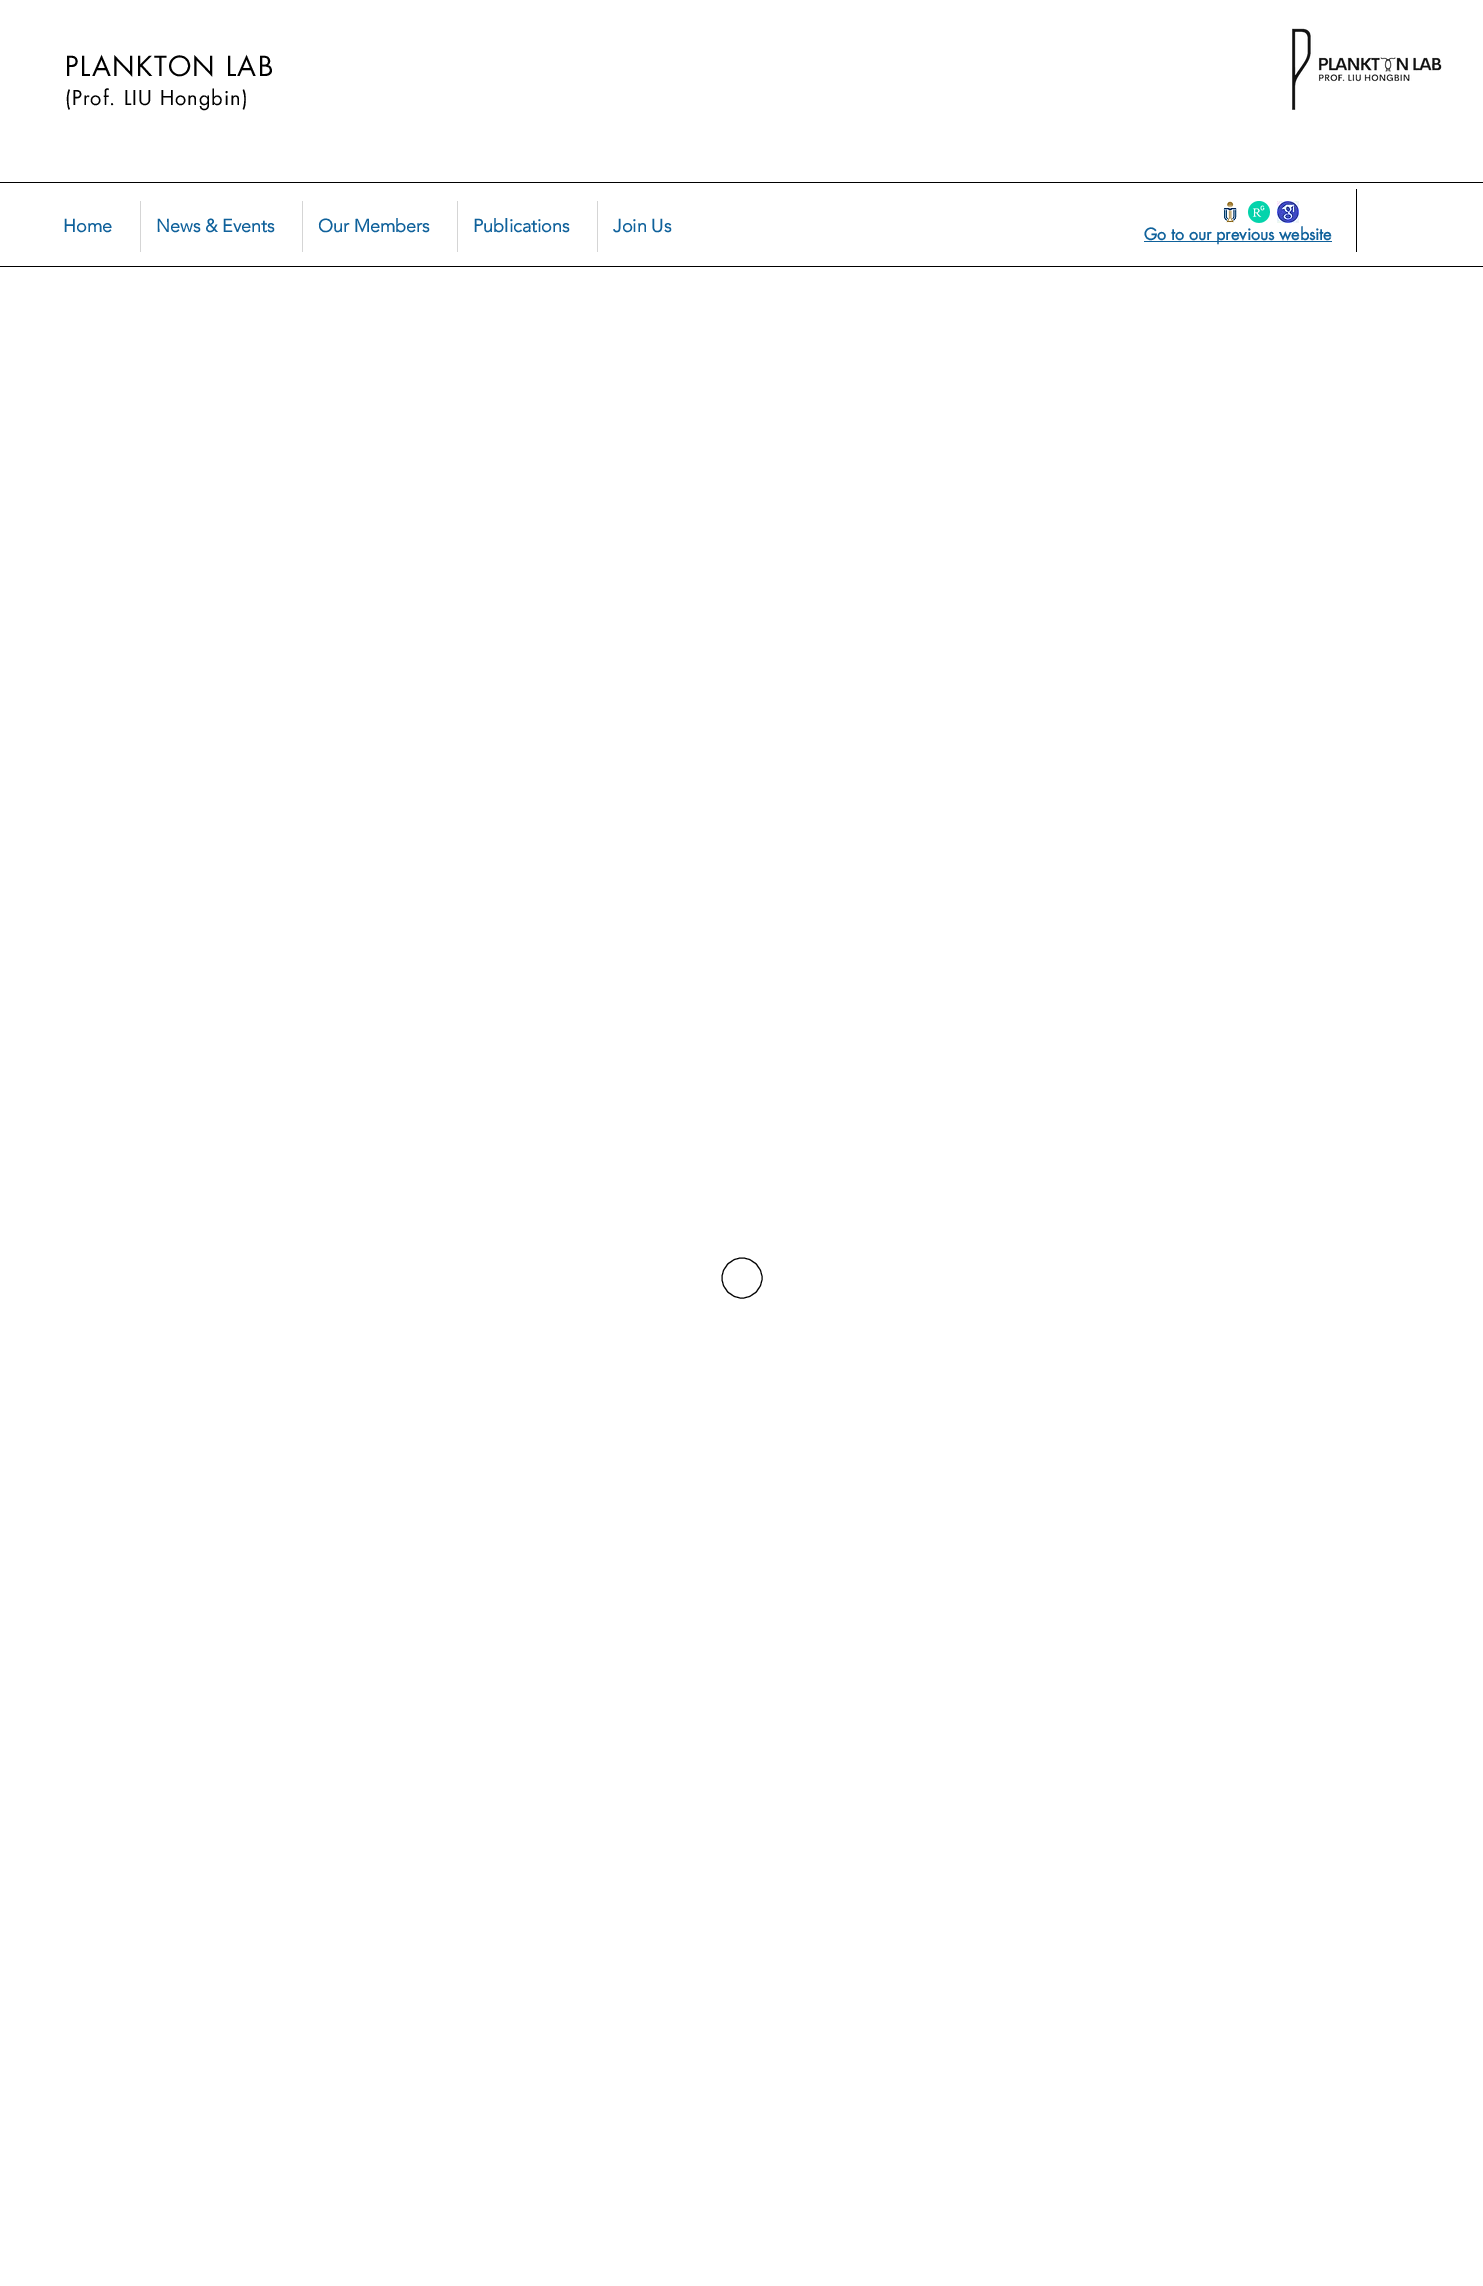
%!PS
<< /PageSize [1483 2286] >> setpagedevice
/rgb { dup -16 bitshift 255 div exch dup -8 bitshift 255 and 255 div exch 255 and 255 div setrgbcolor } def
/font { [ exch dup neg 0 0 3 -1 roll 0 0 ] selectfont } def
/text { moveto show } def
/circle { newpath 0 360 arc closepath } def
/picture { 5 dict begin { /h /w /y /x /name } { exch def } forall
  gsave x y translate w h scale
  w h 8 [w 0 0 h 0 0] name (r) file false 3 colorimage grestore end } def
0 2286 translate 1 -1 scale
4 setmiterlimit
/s1 { /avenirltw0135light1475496-Bold 18 font 16#0F619B rgb } def
/s2 { /futura-Bold 16 font 16#0F619B rgb } def
16#FFFFFF rgb
0 0 1483 2286 rectfill
/futura-Regular 27 font
16#000000 rgb
65 76 moveto 1.4 0 (PLANKTON LAB) ashow
/futura-Regular 20 font
65 105 moveto 1 0 (\(Prof. LIU Hongbin\)) ashow
(pic1.raw) 1292 28 150 82 picture
0 182 1483 1 rectfill
s1
(Home) 63 232 text
16#D5D5D5 rgb
140 201 1 51 rectfill
s1
(News & Events) 156 232 text
16#D5D5D5 rgb
302 201 1 51 rectfill
s1
(Our Members) 318 232 text
16#D5D5D5 rgb
457 201 1 51 rectfill
s1
(Publications) 473 232 text
16#D5D5D5 rgb
597 201 1 51 rectfill
s1
(Join Us) 613 232 text
(pic2.raw) 1223 201 14 22 picture
(pic3.raw) 1248 201 22 22 picture
(pic4.raw) 1277 201 22 22 picture
16#000000 rgb
1356 189 1 63 rectfill
16#0F619B rgb
1144 241 188 1 rectfill
s2
(Go to our previous website) 1144 240 text
16#000000 rgb
0 266 1483 1 rectfill
742 1278 20 circle stroke
showpage
